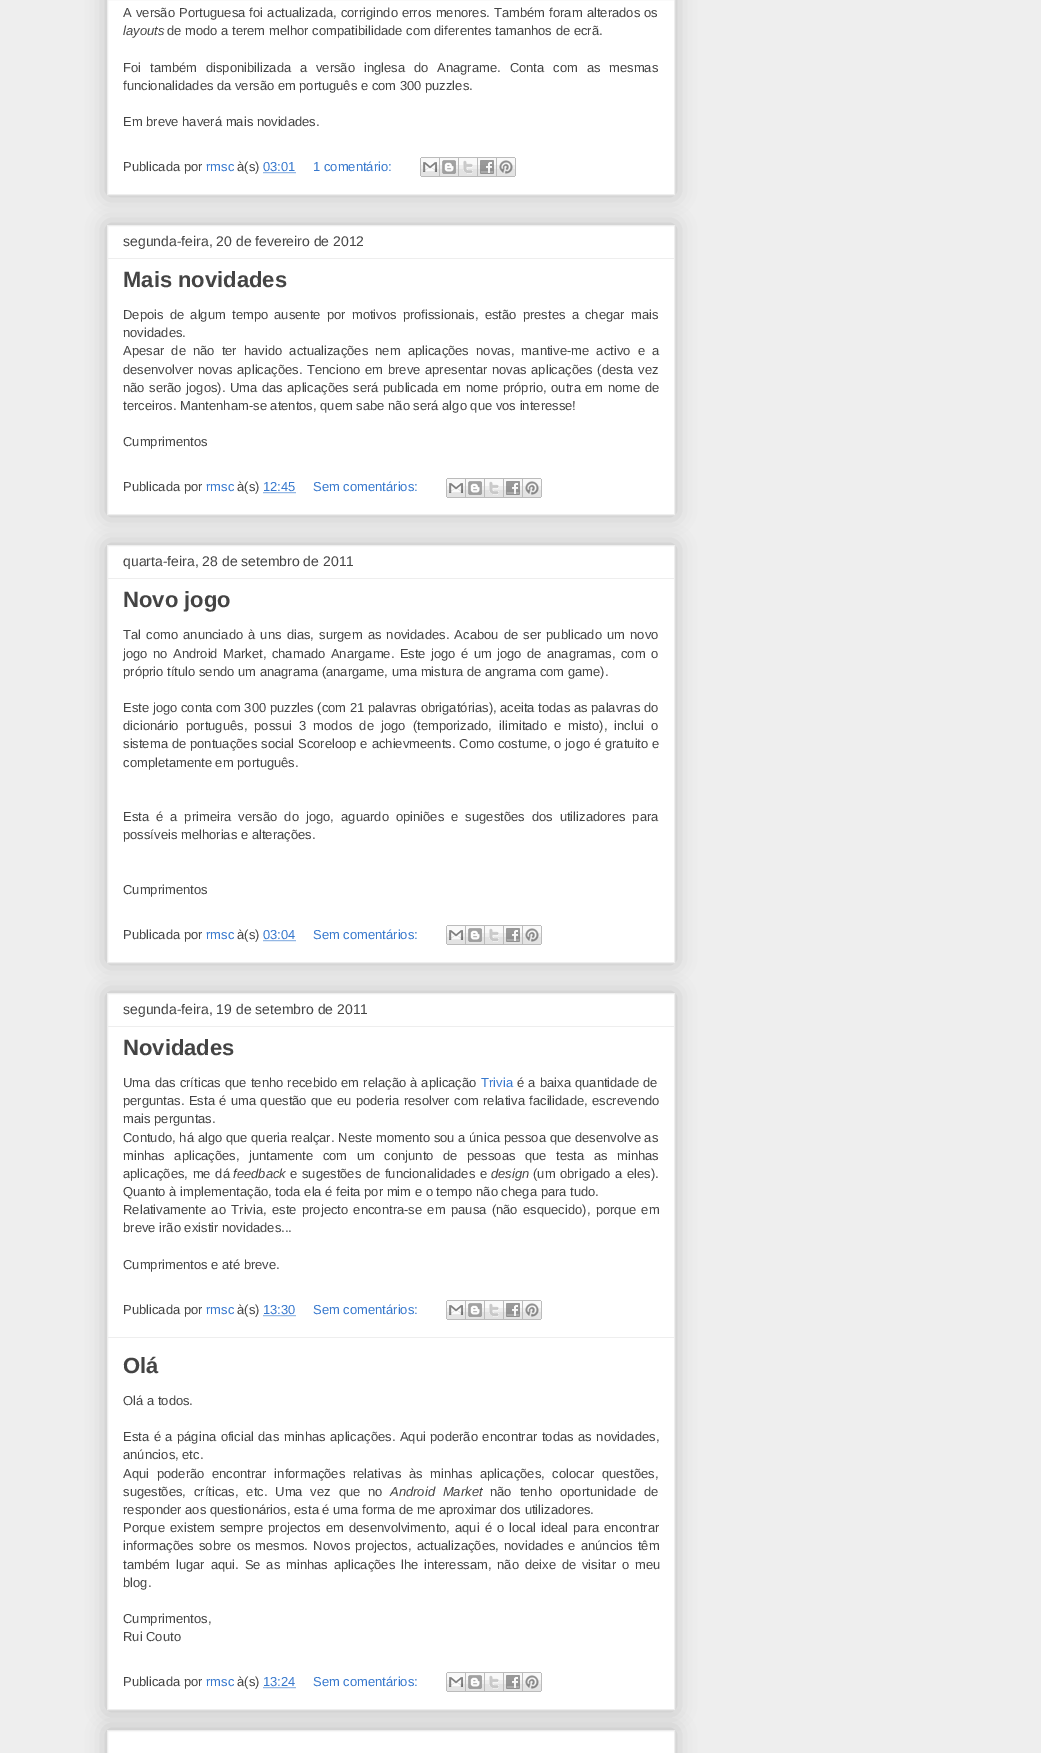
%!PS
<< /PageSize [1041 1753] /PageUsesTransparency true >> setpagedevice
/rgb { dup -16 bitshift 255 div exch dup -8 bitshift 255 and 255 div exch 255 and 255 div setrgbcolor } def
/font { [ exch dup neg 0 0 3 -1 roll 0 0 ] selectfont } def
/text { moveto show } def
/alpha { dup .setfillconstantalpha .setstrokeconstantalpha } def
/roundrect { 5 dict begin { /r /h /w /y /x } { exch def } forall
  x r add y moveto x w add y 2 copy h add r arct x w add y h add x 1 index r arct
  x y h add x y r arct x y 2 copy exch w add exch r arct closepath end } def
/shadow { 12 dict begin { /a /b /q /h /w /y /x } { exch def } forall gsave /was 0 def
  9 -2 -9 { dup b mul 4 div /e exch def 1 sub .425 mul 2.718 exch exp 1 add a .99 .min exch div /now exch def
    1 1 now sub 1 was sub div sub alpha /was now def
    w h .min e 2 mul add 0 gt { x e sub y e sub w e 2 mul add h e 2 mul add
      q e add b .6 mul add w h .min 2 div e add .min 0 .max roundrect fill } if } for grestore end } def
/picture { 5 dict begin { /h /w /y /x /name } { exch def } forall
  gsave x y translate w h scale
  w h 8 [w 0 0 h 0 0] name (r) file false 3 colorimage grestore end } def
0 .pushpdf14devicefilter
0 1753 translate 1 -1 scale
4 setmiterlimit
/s1 { /LiberationSans-Italic 13 font 16#444444 rgb } def
/s2 { /LiberationSans-Regular 13 font 16#444444 rgb } def
/s3 { /LiberationSans-Regular 13 font 16#3778CD rgb } def
/s4 { /LiberationSans-Regular 14 font 16#444444 rgb } def
/s5 { /LiberationSans-Bold 22 font 16#444444 rgb } def
16#EEEEEE rgb
0 0 1041 1753 rectfill
16#000000 rgb
107 -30 568 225 0 10 0.2 shadow
16#FFFFFF rgb
107.5 -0.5 moveto 674.5 -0.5 lineto 674.5 194.5 lineto 107.5 194.5 lineto closepath gsave fill grestore
16#EEEEEE rgb
stroke
/LiberationSans-Regular 13 font
16#444444 rgb
123 17 moveto 0.5 0 32 (A versão Portuguesa foi actualizada, corrigindo erros menores. Também foram alterados os) widthshow
s1
(layouts) 123 35 text
s2
(de modo a terem melhor compatibilidade com diferentes tamanhos de ecrã.) 167 35 text
123 72 moveto 5.25 0 32 (Foi também disponibilizada a versão inglesa do Anagrame. Conta com as mesmas) widthshow
(funcionalidades da versão em português e com 300 puzzles.) 123 90 text
(Em breve haverá mais novidades.) 123 126 text
(Publicada por) 123 171 text
s3
(rmsc) 206 171 text
s2
(à\(s\)) 237 171 text
s3
(03:01) 263 171 text
[1 1] 0 setdash
263.5 172.5 moveto 296 172.5 lineto stroke
(1 comentário:) 313 171 text
(pic1.raw) 420 157 20 20 picture
(pic2.raw) 440 157 19 20 picture
(pic3.raw) 459 157 19 20 picture
(pic4.raw) 478 157 19 20 picture
(pic5.raw) 497 157 19 20 picture
16#000000 rgb
107 225 568 290 0 10 0.2 shadow
16#FFFFFF rgb
107.5 225.5 moveto 674.5 225.5 lineto 674.5 514.5 lineto 107.5 514.5 lineto closepath gsave fill grestore
16#EEEEEE rgb
[] 0 setdash
stroke
s4
(segunda-feira, 20 de fevereiro de 2012) 123 246 text
16#EEEEEE rgb
108 258 566 1 rectfill
s5
(Mais novidades) 123 287 text
/LiberationSans-Regular 13 font
123 319 moveto 2.6 0 32 (Depois de algum tempo ausente por motivos profissionais, estão prestes a chegar mais) widthshow
(novidades.) 123 337 text
123 355 moveto 3.5 0 32 (Apesar de não ter havido actualizações nem aplicações novas, mantive-me activo e a) widthshow
123 374 moveto 1.1 0 32 (desenvolver novas aplicações. Tenciono em breve apresentar novas aplicações \(desta vez) widthshow
123 392 moveto 0.9 0 32 (não serão jogos\). Uma das aplicações será publicada em nome próprio, outra em nome de) widthshow
(terceiros. Mantenham-se atentos, quem sabe não será algo que vos interesse!) 123 410 text
(Cumprimentos) 123 446 text
(Publicada por) 123 491 text
s3
(rmsc) 206 491 text
s2
(à\(s\)) 237 491 text
s3
(12:45) 263 491 text
[1 1] 0 setdash
263.5 492.5 moveto 296 492.5 lineto stroke
(Sem comentários:) 313 491 text
(pic1.raw) 446 478 20 20 picture
(pic2.raw) 466 478 19 20 picture
(pic3.raw) 485 478 19 20 picture
(pic4.raw) 504 478 19 20 picture
(pic5.raw) 523 478 19 20 picture
16#000000 rgb
107 545 568 418 0 10 0.2 shadow
16#FFFFFF rgb
107.5 545.5 moveto 674.5 545.5 lineto 674.5 962.5 lineto 107.5 962.5 lineto closepath gsave fill grestore
16#EEEEEE rgb
[] 0 setdash
stroke
s4
(quarta-feira, 28 de setembro de 2011) 123 566 text
16#EEEEEE rgb
108 578 566 1 rectfill
s5
(Novo jogo) 123 607 text
/LiberationSans-Regular 13 font
123 639 moveto 1.5 0 32 (Tal como anunciado à uns dias, surgem as novidades. Acabou de ser publicado um novo) widthshow
123 658 moveto 1.8 0 32 (jogo no Android Market, chamado Anargame. Este jogo é um jogo de anagramas, com o) widthshow
(próprio título sendo um anagrama \(anargame, uma mistura de angrama com game\).) 123 676 text
(Este jogo conta com 300 puzzles \(com 21 palavras obrigatórias\), aceita todas as palavras do) 123 712 text
123 730 moveto 3.5 0 32 (dicionário português, possui 3 modos de jogo \(temporizado, ilimitado e misto\), inclui o) widthshow
123 748 moveto 0.25 0 32 (sistema de pontuações social Scoreloop e achievmeents. Como costume, o jogo é gratuito e) widthshow
(completamente em português.) 123 767 text
123 821 moveto 3.4 0 32 (Esta é a primeira versão do jogo, aguardo opiniões e sugestões dos utilizadores para) widthshow
(possíveis melhorias e alterações.) 123 839 text
(Cumprimentos) 123 894 text
(Publicada por) 123 939 text
s3
(rmsc) 206 939 text
s2
(à\(s\)) 237 939 text
s3
(03:04) 263 939 text
[1 1] 0 setdash
263.5 940.5 moveto 296 940.5 lineto stroke
(Sem comentários:) 313 939 text
(pic1.raw) 446 925 20 20 picture
(pic2.raw) 466 925 19 20 picture
(pic3.raw) 485 925 19 20 picture
(pic4.raw) 504 925 19 20 picture
(pic5.raw) 523 925 19 20 picture
16#000000 rgb
107 1730 568 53 0 10 0.2 shadow
16#FFFFFF rgb
107.5 1730.5 moveto 674.5 1730.5 lineto 674.5 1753.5 lineto 107.5 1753.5 lineto closepath gsave fill grestore
16#EEEEEE rgb
[] 0 setdash
stroke
16#000000 rgb
107 993 568 717 0 10 0.2 shadow
16#FFFFFF rgb
107.5 993.5 moveto 674.5 993.5 lineto 674.5 1709.5 lineto 107.5 1709.5 lineto closepath gsave fill grestore
16#EEEEEE rgb
stroke
s4
(segunda-feira, 19 de setembro de 2011) 123 1014 text
16#EEEEEE rgb
108 1026 566 1 rectfill
s5
(Novidades) 123 1055 text
/LiberationSans-Regular 13 font
123 1087 moveto 0.5 0 32 (Uma das críticas que tenho recebido em relação à aplicação) widthshow
s3
(Trivia) 481 1087 text
16#444444 rgb
517 1087 moveto 0.5 0 32 (é a baixa quantidade de) widthshow
123 1105 moveto 0.75 0 32 (perguntas. Esta é uma questão que eu poderia resolver com relativa facilidade, escrevendo) widthshow
(mais perguntas.) 123 1123 text
123 1142 moveto 0.1 0 32 (Contudo, há algo que queria realçar. Neste momento sou a única pessoa que desenvolve as) widthshow
123 1160 moveto 5.9 0 32 (minhas aplicações, juntamente com um conjunto de pessoas que testa as minhas) widthshow
123 1178 moveto 1 0 32 (aplicações, me dá) widthshow
s1
(feedback) 233 1178 text
/LiberationSans-Regular 13 font
290 1178 moveto 1 0 32 (e sugestões de funcionalidades e) widthshow
s1
(design) 491 1178 text
/LiberationSans-Regular 13 font
533 1178 moveto 1 0 32 (\(um obrigado a eles\).) widthshow
(Quanto à implementação, toda ela é feita por mim e o tempo não chega para tudo.) 123 1196 text
123 1214 moveto 1.75 0 32 (Relativamente ao Trivia, este projecto encontra-se em pausa \(não esquecido\), porque em) widthshow
(breve irão existir novidades...) 123 1232 text
(Cumprimentos e até breve.) 123 1269 text
(Publicada por) 123 1314 text
s3
(rmsc) 206 1314 text
s2
(à\(s\)) 237 1314 text
s3
(13:30) 263 1314 text
[1 1] 0 setdash
263.5 1315.5 moveto 296 1315.5 lineto stroke
(Sem comentários:) 313 1314 text
(pic1.raw) 446 1300 20 20 picture
(pic2.raw) 466 1300 19 20 picture
(pic3.raw) 485 1300 19 20 picture
(pic4.raw) 504 1300 19 20 picture
(pic5.raw) 523 1300 19 20 picture
16#EEEEEE rgb
108 1337 566 1 rectfill
s5
(Olá) 123 1373 text
s2
(Olá a todos.) 123 1405 text
123 1441 moveto 0.9 0 32 (Esta é a página oficial das minhas aplicações. Aqui poderão encontrar todas as novidades,) widthshow
(anúncios, etc.) 123 1459 text
123 1478 moveto 4 0 32 (Aqui poderão encontrar informações relativas às minhas aplicações, colocar questões,) widthshow
123 1496 moveto 4.25 0 32 (sugestões, críticas, etc. Uma vez que no) widthshow
/LiberationSans-Italic 13 font
390 1496 moveto 4.25 0 32 (Android Market) widthshow
/LiberationSans-Regular 13 font
490 1496 moveto 4.25 0 32 (não tenho oportunidade de) widthshow
(responder aos questionários, esta é uma forma de me aproximar dos utilizadores.) 123 1514 text
123 1532 moveto 1.4 0 32 (Porque existem sempre projectos em desenvolvimento, aqui é o local ideal para encontrar) widthshow
123 1550 moveto 1.5 0 32 (informações sobre os mesmos. Novos projectos, actualizações, novidades e anúncios têm) widthshow
123 1569 moveto 2.25 0 32 (também lugar aqui. Se as minhas aplicações lhe interessam, não deixe de visitar o meu) widthshow
(blog.) 123 1587 text
(Cumprimentos,) 123 1623 text
(Rui Couto) 123 1641 text
(Publicada por) 123 1686 text
s3
(rmsc) 206 1686 text
s2
(à\(s\)) 237 1686 text
s3
(13:24) 263 1686 text
263.5 1687.5 moveto 296 1687.5 lineto stroke
(Sem comentários:) 313 1686 text
(pic1.raw) 446 1672 20 20 picture
(pic2.raw) 466 1672 19 20 picture
(pic3.raw) 485 1672 19 20 picture
(pic4.raw) 504 1672 19 20 picture
(pic5.raw) 523 1672 19 20 picture
.poppdf14devicefilter showpage
